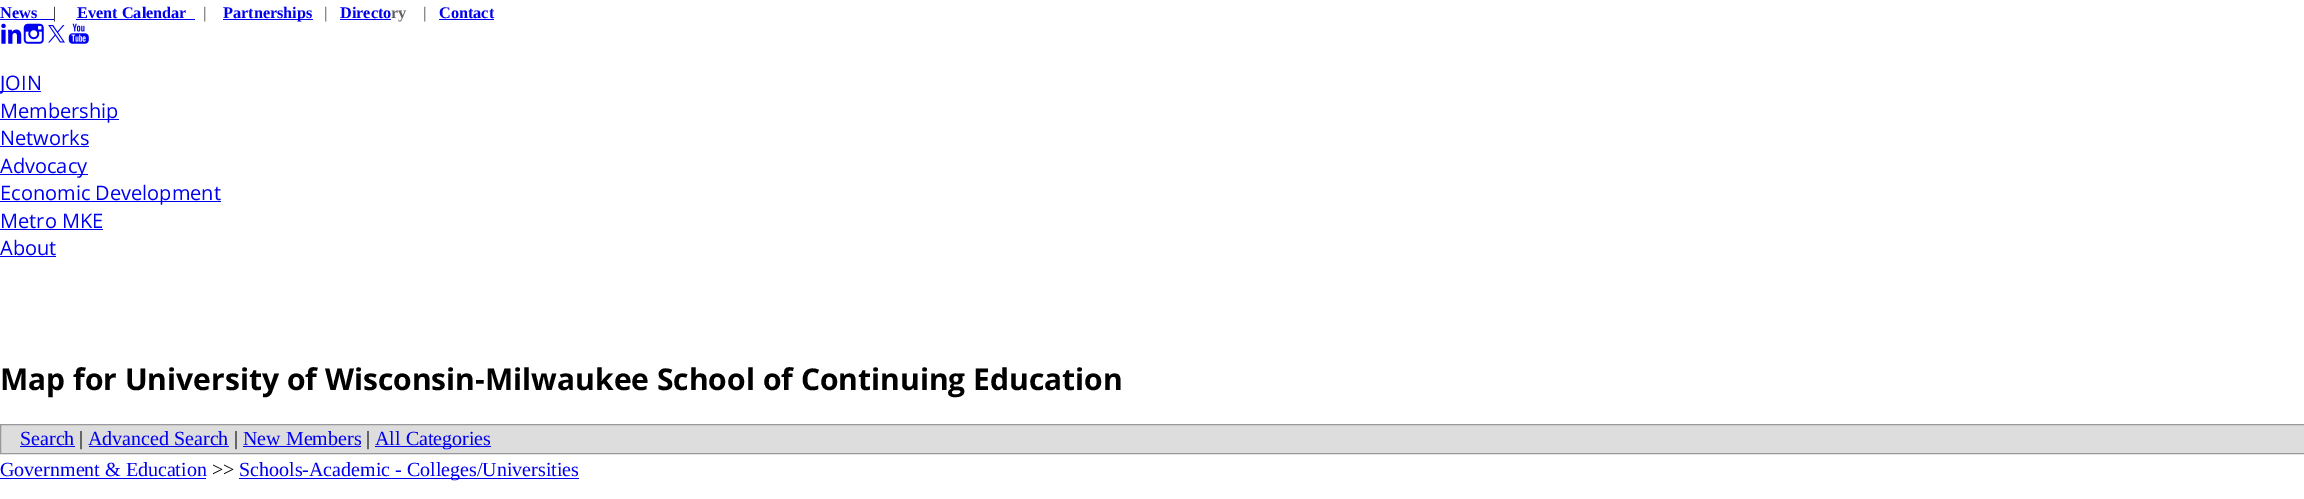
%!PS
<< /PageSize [2304 499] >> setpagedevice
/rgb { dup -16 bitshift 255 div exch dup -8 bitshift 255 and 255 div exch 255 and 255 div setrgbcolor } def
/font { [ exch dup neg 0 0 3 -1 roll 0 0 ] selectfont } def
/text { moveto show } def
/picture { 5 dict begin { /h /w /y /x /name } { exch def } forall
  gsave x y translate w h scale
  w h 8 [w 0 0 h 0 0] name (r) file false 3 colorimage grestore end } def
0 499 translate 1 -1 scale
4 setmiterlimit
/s1 { /LiberationSerif-Bold 16.25 font 16#0000EE rgb } def
/s2 { /LiberationSerif-Regular 16.25 font 16#000000 rgb } def
/s3 { /LiberationSerif-Bold 16.25 font 16#626262 rgb } def
/s4 { /OpenSans-Regular 20 font 16#0000EE rgb } def
/s5 { /OpenSans-Bold 30 font 16#000000 rgb } def
/s6 { /LiberationSerif-Regular 20 font 16#0000EE rgb } def
/s7 { /LiberationSerif-Regular 20 font 16#000000 rgb } def
16#FFFFFF rgb
0 0 2304 499 rectfill
s1
(News) 0 18 text
s2
(|) 53 18 text
16#0000EE rgb
0 19 54 1 rectfill
s1
(Event Calendar) 77 18 text
76 19 119 1 rectfill
s3
(|) 203 18 text
16#0000EE rgb
223 19 90 1 rectfill
(Partnerships) 223 18 text
s3
(|) 324 18 text
s1
(Directo) 340 18 text
s3
(ry) 391 18 text
16#0000EE rgb
340 19 51 1 rectfill
s3
(|) 423 18 text
s1
(Contact) 439 18 text
439 19 55 1 rectfill
(pic1.raw) 1 23 21 21 picture
(pic2.raw) 23 23 21 21 picture
(pic3.raw) 48 25 17 18 picture
(pic4.raw) 68 23 21 21 picture
0 91 41 1 rectfill
s4
(JOIN) 0 90 text
0 119 119 1 rectfill
(Membership) 0 118 text
(Networks) 0 145 text
0 146 89 1 rectfill
0 174 88 1 rectfill
(Advocacy) 0 173 text
0 201 221 1 rectfill
(Economic Development) 0 200 text
(Metro MKE) 0 228 text
0 229 103 1 rectfill
(About) 0 255 text
0 256 56 1 rectfill
s5
(Map for University of Wisconsin-Milwaukee School of Continuing Education) 0 390 text
16#DDDDDD rgb
0.5 424.5 moveto 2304.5 424.5 lineto 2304.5 453.5 lineto 0.5 453.5 lineto closepath gsave fill grestore
16#999999 rgb
stroke
s6
(Search) 20 445 text
20 446 55 1 rectfill
s7
(|) 79 445 text
s6
(Advanced Search) 88 445 text
89 446 140 1 rectfill
s7
(|) 234 445 text
s6
(New Members) 243 445 text
243 446 118 1 rectfill
s7
(|) 366 445 text
16#0000EE rgb
375 446 116 1 rectfill
(All Categories) 375 445 text
(Government & Education) 0 476 text
0 478 206 1 rectfill
s7
(>>) 212 476 text
16#0000EE rgb
239 478 340 1 rectfill
(Schools-Academic - Colleges/Universities) 239 476 text
showpage
